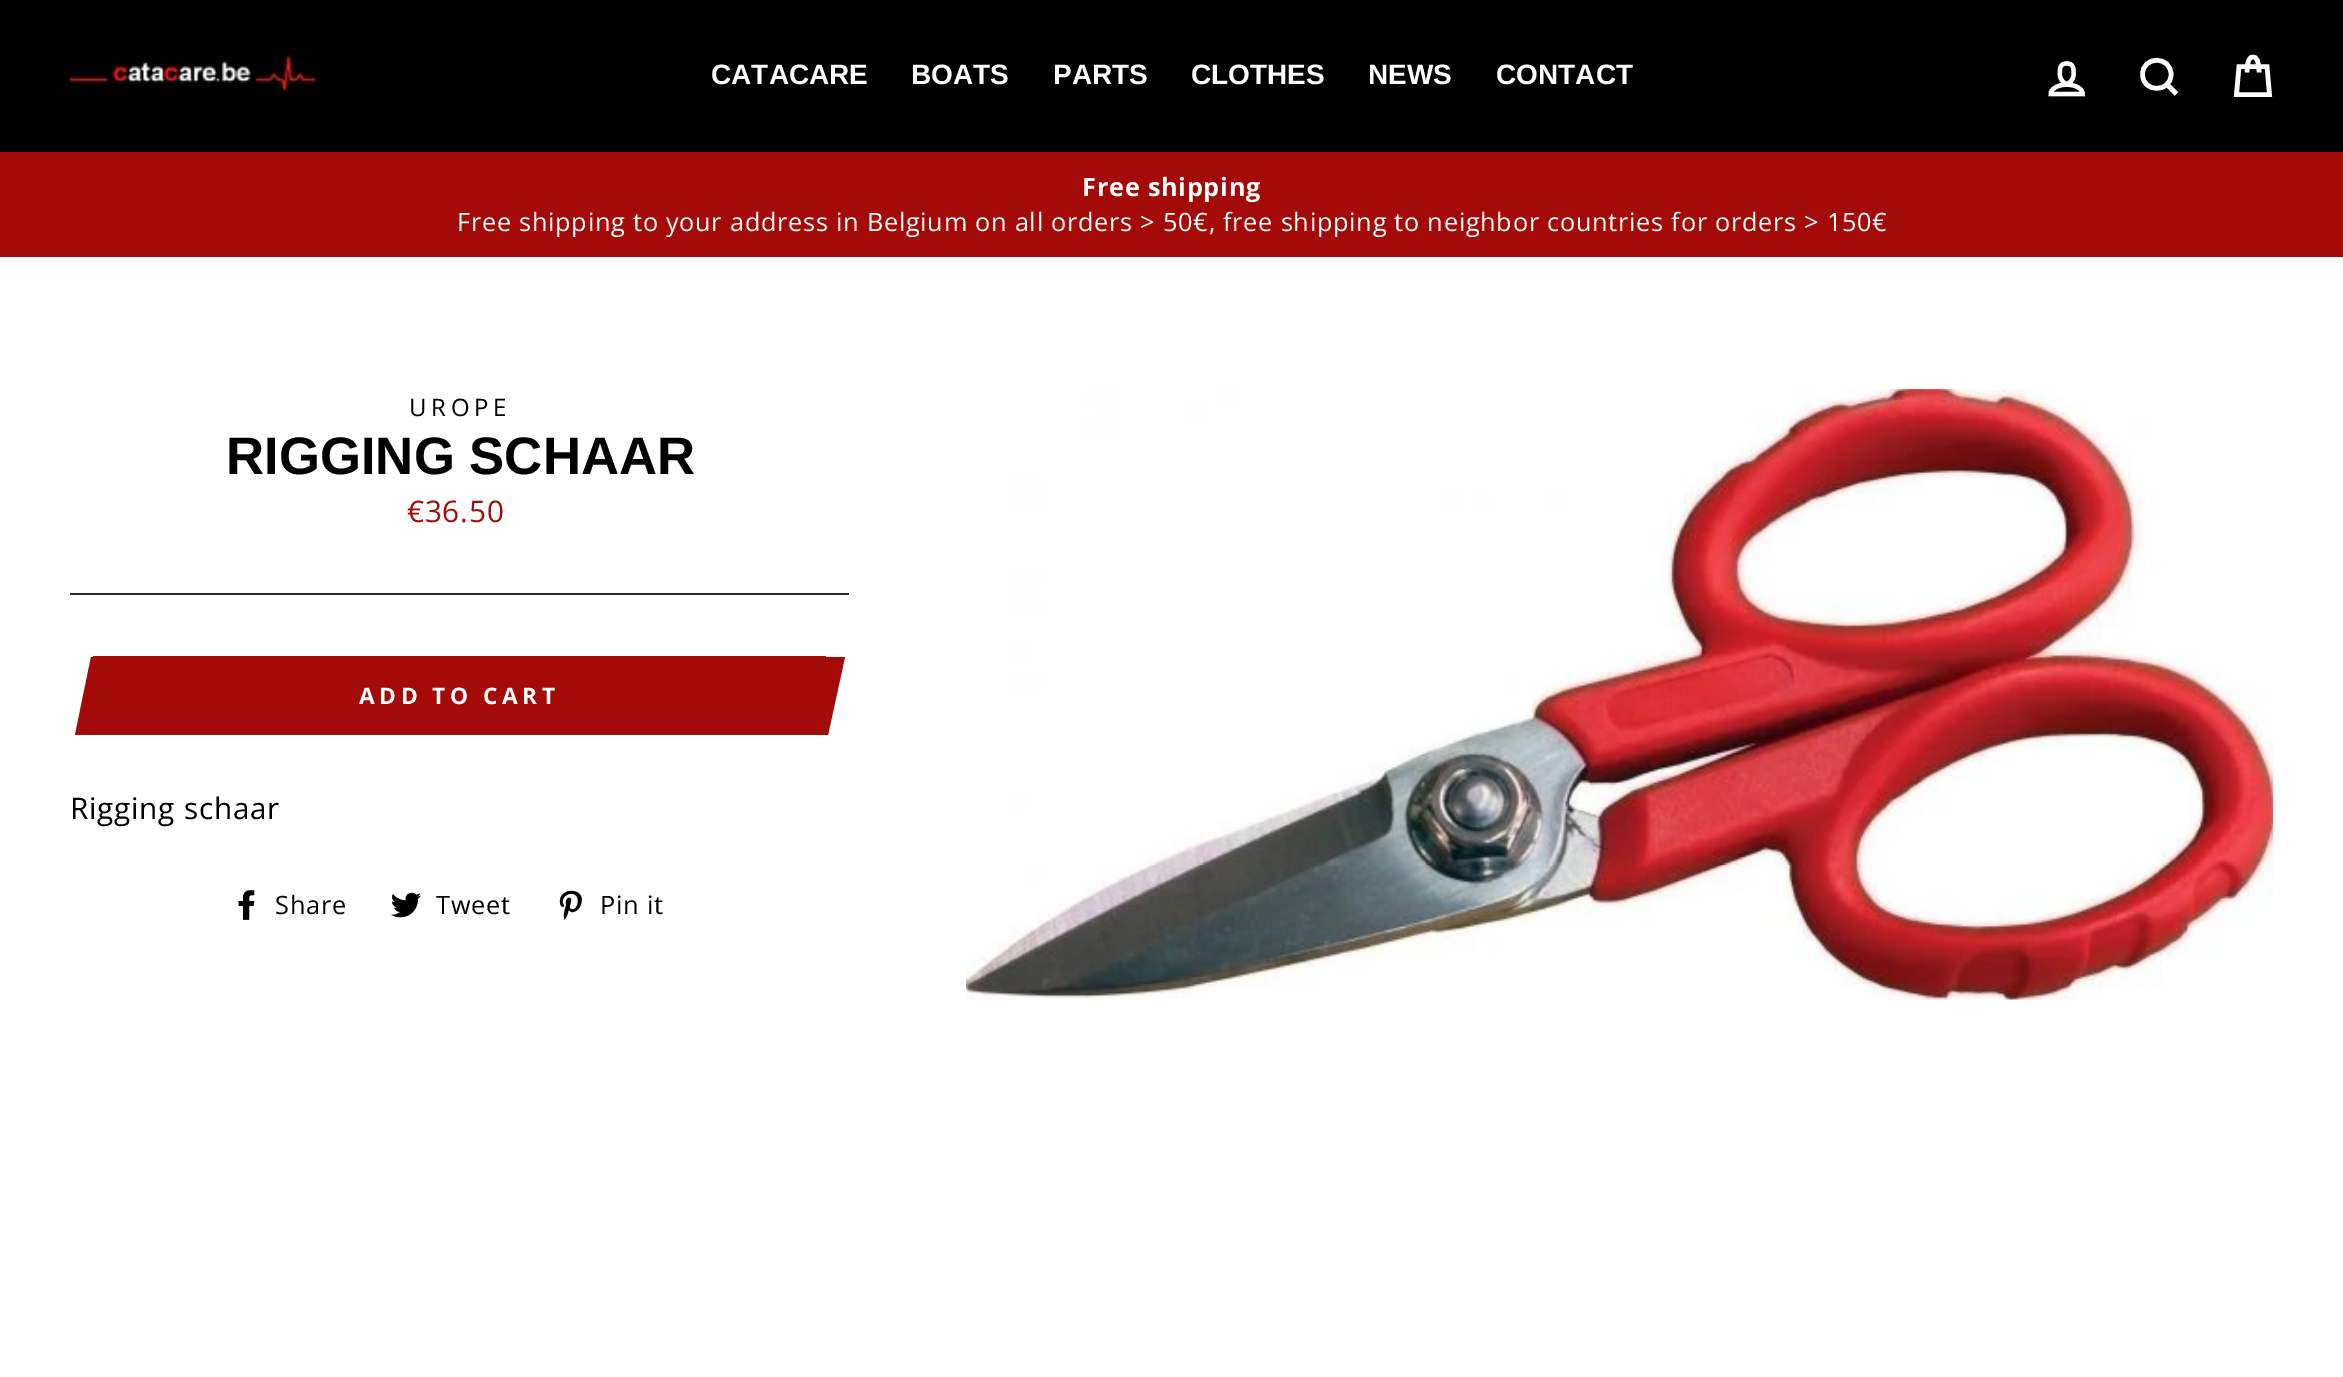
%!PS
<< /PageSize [2343 1377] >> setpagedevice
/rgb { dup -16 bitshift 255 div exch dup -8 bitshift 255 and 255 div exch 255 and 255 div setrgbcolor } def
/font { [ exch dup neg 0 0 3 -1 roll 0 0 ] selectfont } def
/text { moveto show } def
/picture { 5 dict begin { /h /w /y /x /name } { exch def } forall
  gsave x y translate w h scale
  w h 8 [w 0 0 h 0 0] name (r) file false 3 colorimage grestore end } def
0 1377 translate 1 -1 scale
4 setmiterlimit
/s1 { /LiberationSans-Bold 28 font 16#FFFFFF rgb } def
/s2 { /LiberationSans-Bold 52.75 font 16#000000 rgb } def
16#FFFFFF rgb
0 0 2343 1377 rectfill
16#000000 rgb
0 0 2343 152 rectfill
(pic1.raw) 70 53 245 41 picture
s1
(CATACARE) 711 84 text
(BOATS) 911 84 text
(PARTS) 1053 84 text
(CLOTHES) 1191 84 text
(NEWS) 1368 84 text
(CONTACT) 1496 84 text
(pic2.raw) 2048 61 38 36 picture
4.6 setlinewidth
2171 74.5 moveto 2171 93 2142.5 93 2142.5 74.5 curveto 2142.5 55.5 2171 55.5 2171 74.5 curveto closepath 2176.5 94 moveto 2167 84.5 lineto stroke
2247 72.5 moveto 2247 60.5 2249.5 57 2253 57 curveto 2256.5 57 2259 60.5 2259 72.5 curveto 2239 66.5 moveto 2267 66.5 lineto 2269.5 94.5 lineto 2236.5 94.5 lineto closepath stroke
16#A40B08 rgb
0 152 2343 105 rectfill
/OpenSans-Bold 25.3 font
16#FFFFFF rgb
1082 196 moveto 0.74 0 (Free shipping) ashow
/OpenSans-Regular 25.3 font
457 231 moveto 0.74 0 (Free shipping to your address in Belgium on all orders > 50€, free shipping to neighbor countries for orders > 150€) ashow
/OpenSans-Regular 24 font
16#000000 rgb
409 416 moveto 4.75 0 (UROPE) ashow
s2
(RIGGING SCHAAR) 226 474 text
/OpenSans-Regular 29.75 font
16#A40B08 rgb
407 522 moveto 0.74 0 (€36.50) ashow
16#2B2A27 rgb
70 593 779 2 rectfill
16#A40B08 rgb
93 656 733 79 rectfill
91 657 moveto 126 657 lineto 110 735 lineto 75 735 lineto closepath fill
/OpenSans-Bold 22.75 font
16#FFFFFF rgb
359 704 moveto 4.5 0 (ADD TO CART) ashow
16#A40B08 rgb
810 657 moveto 845 657 lineto 828 735 lineto 793 735 lineto closepath fill
/OpenSans-Regular 29.75 font
16#000000 rgb
70 819 moveto 0.74 0 (Rigging schaar) ashow
(pic3.raw) 238 890 17 30 picture
/OpenSans-Regular 25.3 font
275 914 moveto 0.74 0 (Share) ashow
(pic4.raw) 391 892 30 26 picture
436 914 moveto 0.74 0 (Tweet) ashow
(pic5.raw) 559 890 23 30 picture
600 914 moveto 0.74 0 (Pin it) ashow
(pic6.raw) 966 389 1307 611 picture
showpage
